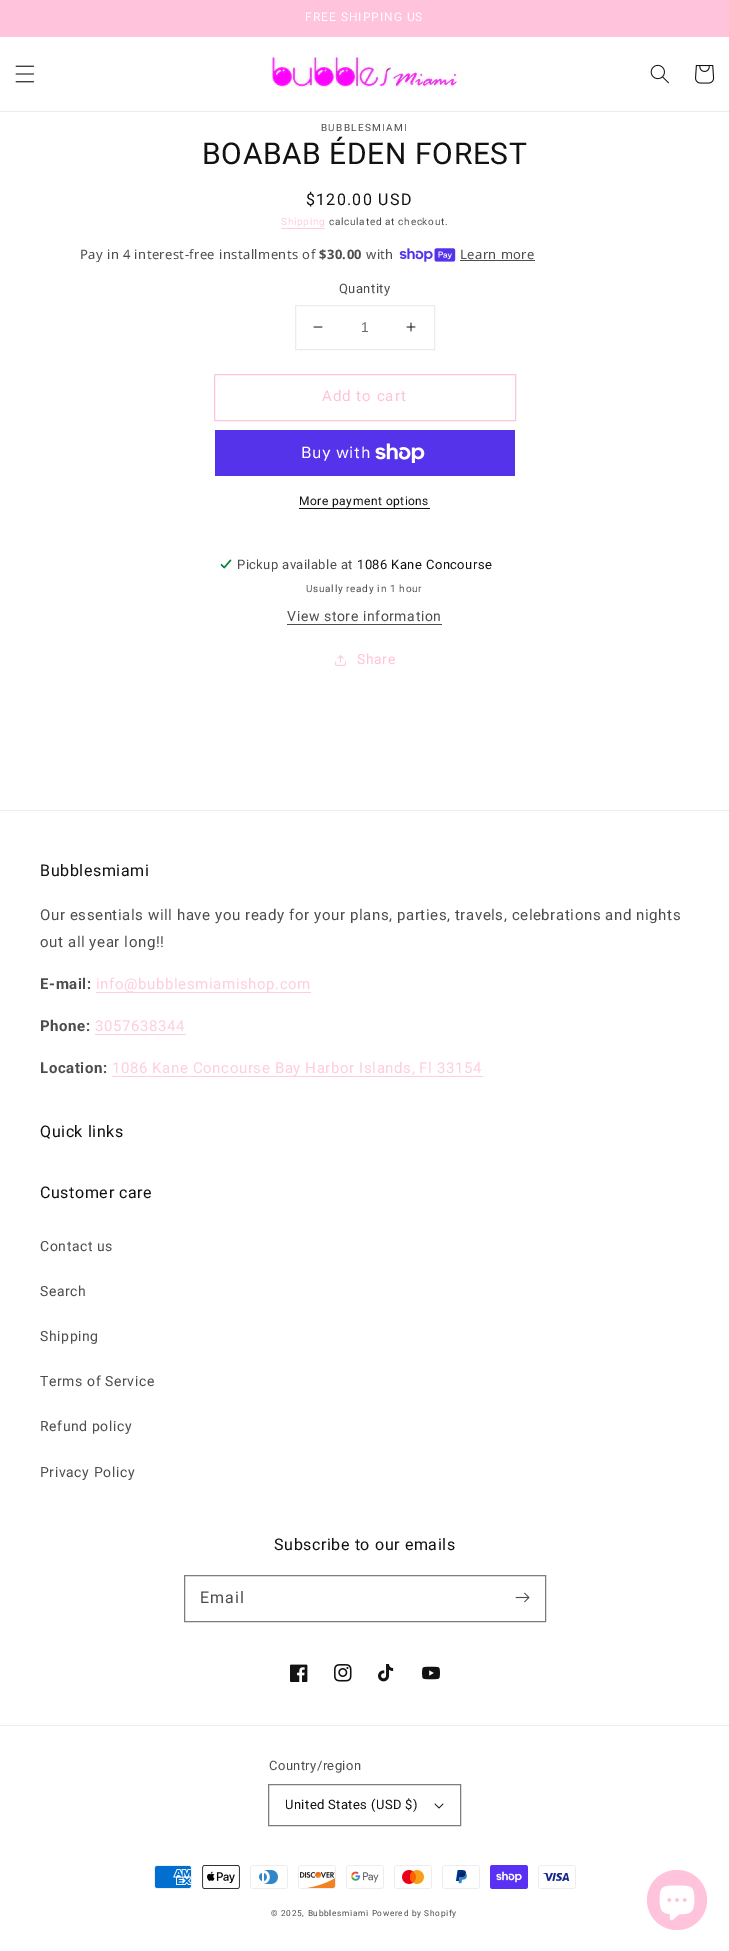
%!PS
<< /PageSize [729 1951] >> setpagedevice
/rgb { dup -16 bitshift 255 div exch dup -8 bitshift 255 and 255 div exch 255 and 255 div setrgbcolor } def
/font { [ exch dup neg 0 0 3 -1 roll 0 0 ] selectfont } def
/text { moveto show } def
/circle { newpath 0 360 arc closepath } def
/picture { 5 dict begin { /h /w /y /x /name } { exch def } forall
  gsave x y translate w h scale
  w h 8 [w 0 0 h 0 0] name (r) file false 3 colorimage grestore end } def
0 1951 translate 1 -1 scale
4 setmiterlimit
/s1 { /LiberationSans-Regular 14 font 16#686868 rgb } def
16#FFFFFF rgb
0 0 729 1951 rectfill
16#FFC3DB rgb
0 0 729 36 rectfill
16#FFC8DE rgb
0 36 729 1 rectfill
/Roboto-Regular 12 font
16#FFFFFF rgb
305 21 moveto 1 0 (FREE SHIPPING US) ashow
16#ECECEC rgb
0 111 729 1 rectfill
(pic1.raw) 15 65 20 18 picture
(pic2.raw) 270 54 193 34 picture
(pic3.raw) 650 64 19 20 picture
(pic4.raw) 695 65 20 19 picture
/Roboto-Regular 10 font
16#4D4D4D rgb
321 131 moveto 1.25 0 (BUBBLESMIAMI) ashow
/Roboto-Regular 30 font
16#121212 rgb
202 164 moveto 0.6 0 (BOABAB ÉDEN FOREST) ashow
/Roboto-Regular 16 font
306 205 moveto 1.25 0 ($120.00 USD) ashow
/Roboto-Regular 10 font
16#FFCCE0 rgb
281 225 moveto 0.7 0 (Shipping) ashow
281 228 44 1 rectfill
16#4D4D4D rgb
329 225 moveto 0.7 0 (calculated at checkout.) ashow
/NotoSans-Regular 13 font
80 259 moveto 0.4 0 (Pay in 4 interest-free installments of) ashow
/NotoSans-Bold 13 font
319 259 moveto 0.4 0 ($30.00) ashow
/NotoSans-Regular 13 font
366 259 moveto 0.4 0 (with) ashow
(pic5.raw) 399 248 57 14 picture
460 259 moveto 0.4 0 (Learn more) ashow
460 260 75 1 rectfill
/Roboto-Regular 13 font
339 293 moveto 0.4 0 (Quantity) ashow
16#ECECEC rgb
295.5 305.5 139 44 rectstroke
(pic6.raw) 313 326 10 2 picture
s1
(1) 361 332 text
(pic7.raw) 406 322 10 10 picture
16#FFC3DB rgb
214.5 374.5 301 46 rectstroke
/Roboto-Regular 15 font
322 401 moveto 1 0 (Add to cart) ashow
16#5433EB rgb
215 430 300 46 rectfill
/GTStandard-Regular 16 font
16#FFFFFF rgb
301 458 moveto 0.6 0 (Buy with) ashow
(pic8.raw) 375 443 50 20 picture
/Roboto-Regular 12 font
16#121212 rgb
299 505 moveto 0.5 0 (More payment options) ashow
299 508 131 1 rectfill
(pic9.raw) 220 559 12 10 picture
/Roboto-Regular 13 font
16#4D4D4D rgb
237 569 moveto 0.4 0 (Pickup available at) ashow
16#121212 rgb
357 569 moveto 0.4 0 (1086 Kane Concourse) ashow
/Roboto-Regular 10 font
16#4D4D4D rgb
306 592 moveto 0.7 0 (Usually ready in 1 hour) ashow
/Roboto-Regular 14 font
287 621 moveto 0.6 0 (View store information) ashow
287 624 155 1 rectfill
(pic10.raw) 335 655 11 11 picture
16#FFC3DB rgb
357 664 moveto 0.6 0 (Share) ashow
16#ECECEC rgb
0 810 729 1 rectfill
/Roboto-Regular 16 font
16#121212 rgb
40 876 moveto 0.6 0 (Bubblesmiami) ashow
/Roboto-Regular 15 font
16#4D4D4D rgb
40 920 moveto 0.6 0 (Our essentials will have you ready for your plans, parties, travels, celebrations and nights) ashow
40 947 moveto 0.6 0 (out all year long!!) ashow
/Roboto-Bold 15 font
40 989 moveto 0.6 0 (E-mail:) ashow
16#FFCCE0 rgb
96 992 215 1 rectfill
/Roboto-Regular 15 font
96 989 moveto 0.6 0 (info@bubblesmiamishop.com) ashow
/Roboto-Bold 15 font
16#4D4D4D rgb
40 1031 moveto 0.6 0 (Phone:) ashow
/Roboto-Regular 15 font
16#FFCCE0 rgb
95 1031 moveto 0.6 0 (3057638344) ashow
95 1034 91 1 rectfill
/Roboto-Bold 15 font
16#4D4D4D rgb
40 1073 moveto 0.6 0 (Location:) ashow
16#FFCCE0 rgb
112 1076 371 1 rectfill
/Roboto-Regular 15 font
112 1073 moveto 0.6 0 (1086 Kane Concourse Bay Harbor Islands, Fl 33154) ashow
/Roboto-Regular 16 font
16#121212 rgb
40 1137 moveto 0.6 0 (Quick links) ashow
40 1198 moveto 0.6 0 (Customer care) ashow
/Roboto-Regular 14 font
16#4D4D4D rgb
40 1251 moveto 0.6 0 (Contact us) ashow
40 1296 moveto 0.6 0 (Search) ashow
40 1341 moveto 0.6 0 (Shipping) ashow
40 1386 moveto 0.6 0 (Terms of Service) ashow
40 1431 moveto 0.6 0 (Refund policy) ashow
40 1477 moveto 0.6 0 (Privacy Policy) ashow
/Roboto-Regular 16 font
16#121212 rgb
274 1550 moveto 0.6 0 (Subscribe to our emails) ashow
16#7D7D7D rgb
184.5 1575.5 361 46 rectstroke
16#4D4D4D rgb
200 1603 moveto 1 0 (Email) ashow
(pic11.raw) 515 1592 15 11 picture
(pic12.raw) 290 1664 18 18 picture
(pic13.raw) 334 1664 18 18 picture
(pic14.raw) 378 1664 16 18 picture
(pic15.raw) 422 1666 18 14 picture
16#ECECEC rgb
0 1725 729 1 rectfill
/Roboto-Regular 13 font
16#4D4D4D rgb
269 1770 moveto 0.4 0 (Country/region) ashow
16#7D7D7D rgb
268.5 1784.5 192 41 rectstroke
16#121212 rgb
285 1809 moveto 0.4 0 (United States \(USD $\)) ashow
(pic16.raw) 434 1803 10 6 picture
(pic17.raw) 154 1865 38 24 picture
(pic18.raw) 202 1865 38 24 picture
(pic19.raw) 250 1865 38 24 picture
(pic20.raw) 298 1865 38 24 picture
(pic21.raw) 346 1865 38 24 picture
(pic22.raw) 394 1865 38 24 picture
(pic23.raw) 442 1865 38 24 picture
(pic24.raw) 490 1865 38 24 picture
(pic25.raw) 538 1865 38 24 picture
/Roboto-Regular 8.3 font
16#4D4D4D rgb
271 1916 moveto 0.7 0 (© 2025, Bubblesmiami Powered by Shopify) ashow
16#FFC3DB rgb
677 1900 30 circle fill
(pic26.raw) 659 1885 36 36 picture
showpage
